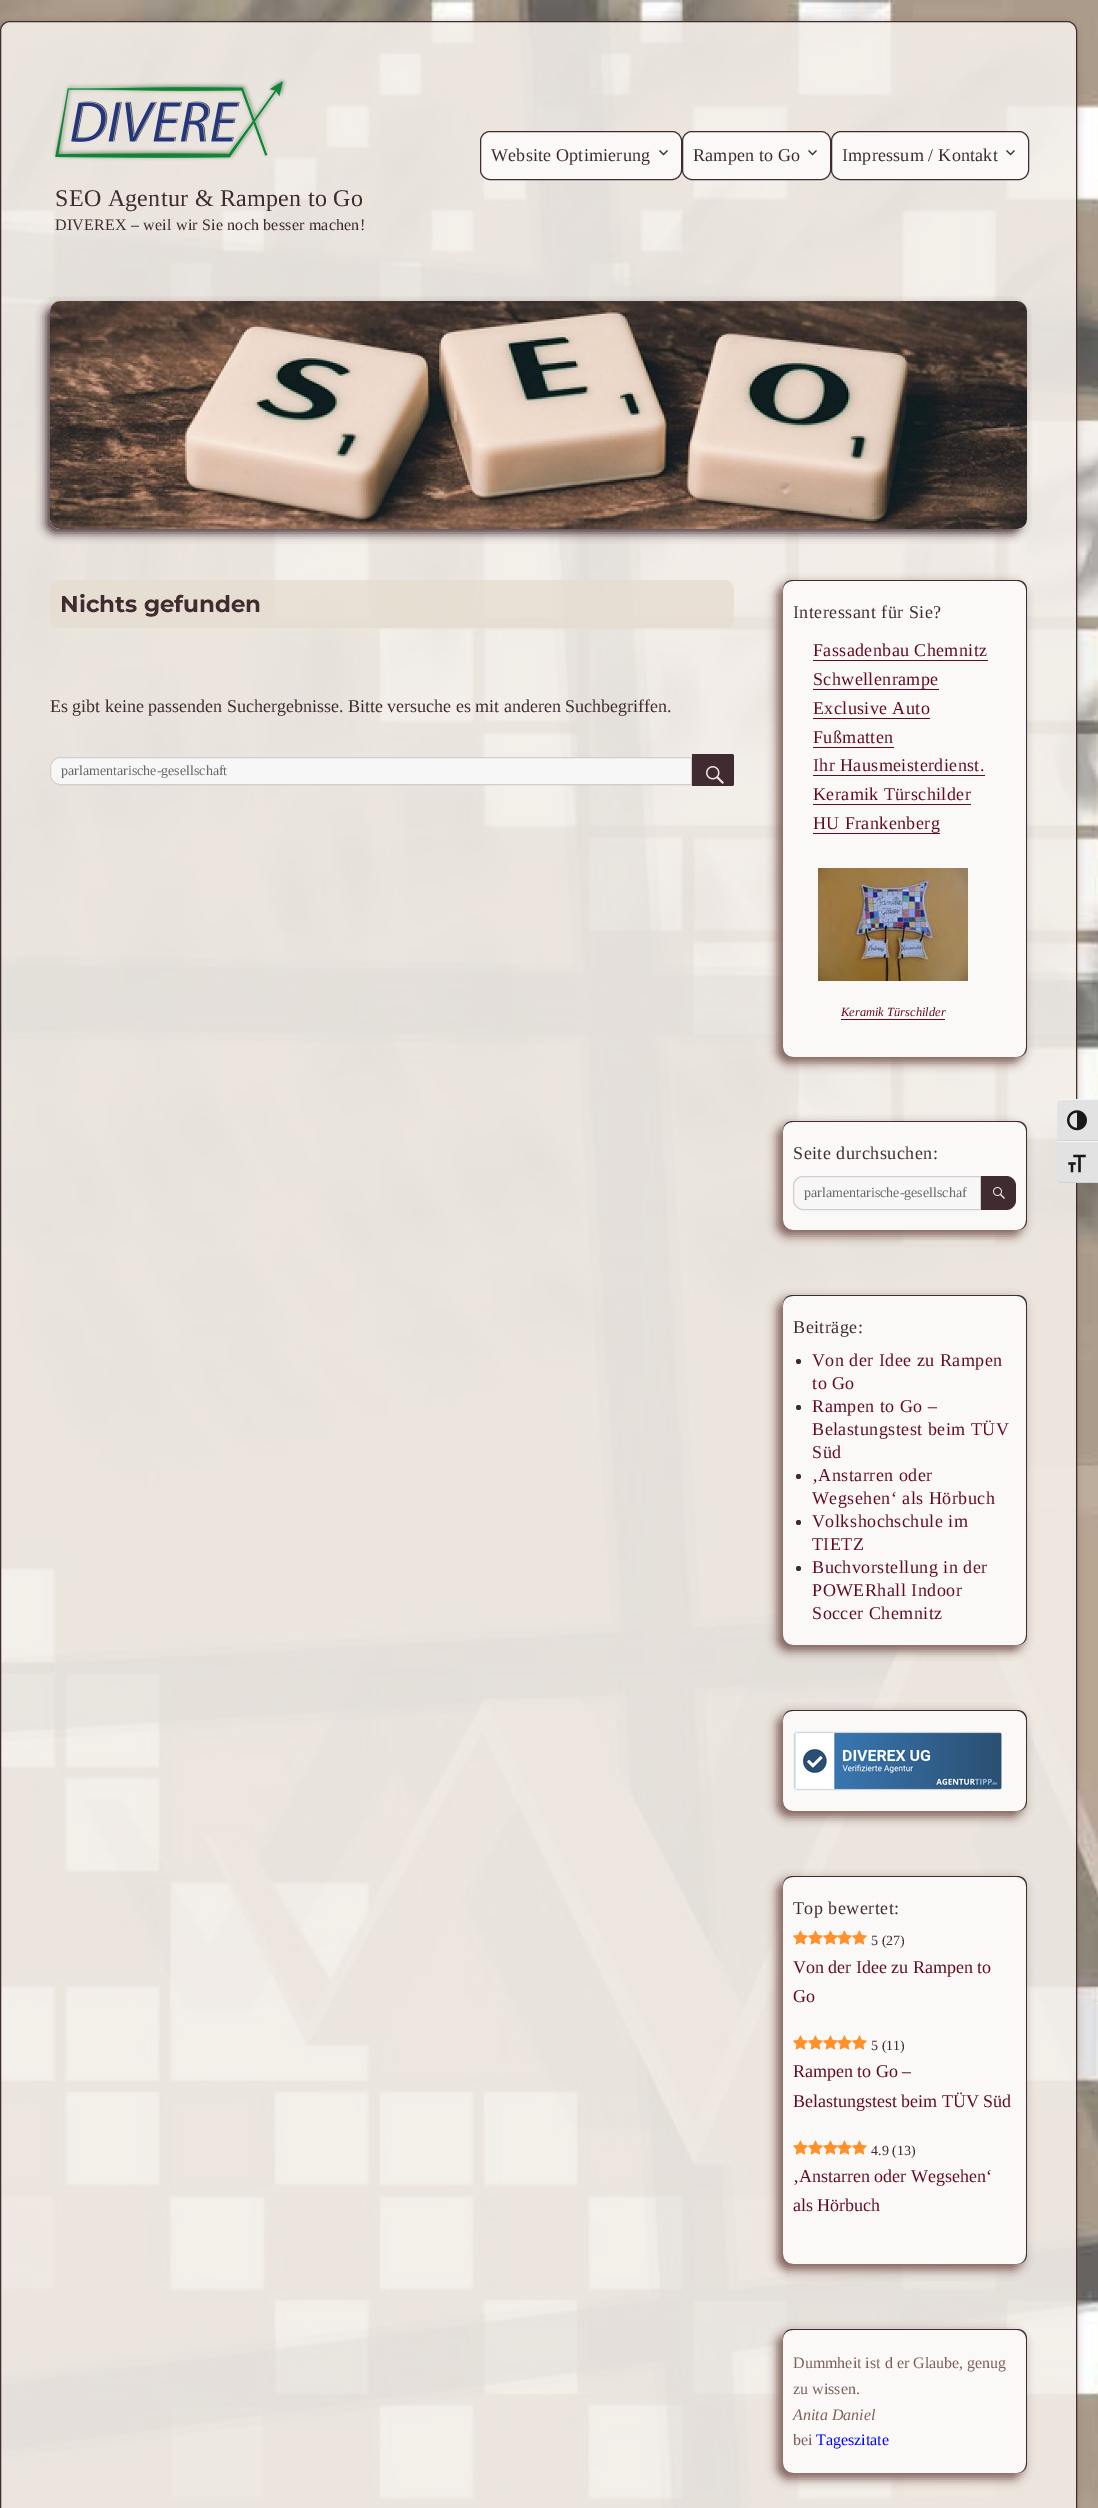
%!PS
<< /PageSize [1098 2508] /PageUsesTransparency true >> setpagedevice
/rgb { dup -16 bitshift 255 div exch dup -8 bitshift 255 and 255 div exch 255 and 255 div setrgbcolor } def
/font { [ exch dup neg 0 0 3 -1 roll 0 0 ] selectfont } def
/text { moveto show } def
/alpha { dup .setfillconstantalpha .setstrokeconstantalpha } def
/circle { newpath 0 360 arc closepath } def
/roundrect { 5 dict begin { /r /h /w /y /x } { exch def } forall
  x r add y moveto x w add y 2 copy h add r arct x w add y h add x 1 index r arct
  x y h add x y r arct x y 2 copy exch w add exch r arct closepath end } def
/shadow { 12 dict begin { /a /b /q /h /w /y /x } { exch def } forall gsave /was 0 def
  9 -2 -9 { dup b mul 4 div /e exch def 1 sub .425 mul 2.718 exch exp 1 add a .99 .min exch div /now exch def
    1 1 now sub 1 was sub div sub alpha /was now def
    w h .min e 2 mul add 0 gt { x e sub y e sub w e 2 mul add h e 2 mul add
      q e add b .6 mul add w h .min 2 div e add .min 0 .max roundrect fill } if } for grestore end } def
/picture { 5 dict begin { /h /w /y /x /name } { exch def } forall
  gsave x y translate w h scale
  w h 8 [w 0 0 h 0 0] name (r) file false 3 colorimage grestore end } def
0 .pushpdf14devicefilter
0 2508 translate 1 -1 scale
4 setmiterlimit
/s1 { /Montserrat-Thin 23 font 16#402B30 rgb } def
/s2 { /LiberationSerif-Regular 18 font 16#402B30 rgb } def
/s3 { /LiberationSerif-Regular 14 font 16#686868 rgb } def
/s4 { /LiberationSerif-Italic 12.5 font 16#640C1F rgb } def
/s5 { /LiberationSerif-Regular 14 font 16#402B30 rgb } def
/s6 { /LiberationSerif-Regular 18 font 16#640C1F rgb } def
/s7 { /LiberationSerif-Regular 16 font 16#806059 rgb } def
/s8 { /LiberationSerif-Italic 16 font 16#806059 rgb } def
/s9 { /LiberationSerif-Regular 16 font 16#0000FF rgb } def
16#FFFFFF rgb
0 0 1098 2508 rectfill
(pic1.raw) 0 0 1098 2508 picture
gsave
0 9 moveto 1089 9 lineto 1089 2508 lineto 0 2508 lineto closepath 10 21 moveto 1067 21 lineto 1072.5 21 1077 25.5 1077 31 curveto 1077 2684 lineto 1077 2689.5 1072.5 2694 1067 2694 curveto 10 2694 lineto 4.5 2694 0 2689.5 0 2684 curveto 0 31 lineto 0 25.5 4.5 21 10 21 curveto closepath eoclip newpath
16#806059 rgb
-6 25 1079 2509 11 5 1 shadow
grestore
0.9 alpha
16#F2EDE7 rgb
0.5 21.5 1076 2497 9.5 roundrect fill
1 alpha
16#402B30 rgb
0.5 21.5 1076 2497 9.5 roundrect stroke
16#FBF9F8 rgb
480.5 131.5 201 48 9.5 roundrect gsave fill grestore
16#402B30 rgb
stroke
/LiberationSerif-Regular 18 font
491 161 moveto 0.2 0 (Website Optimierung) ashow
(pic2.raw) 659 150 9 6 picture
16#FBF9F8 rgb
682.5 131.5 148 48 9.5 roundrect gsave fill grestore
16#402B30 rgb
stroke
693 161 moveto 0.2 0 (Rampen to Go) ashow
(pic2.raw) 808 150 9 6 picture
16#FBF9F8 rgb
831.5 131.5 197 48 9.5 roundrect gsave fill grestore
16#402B30 rgb
stroke
842 161 moveto 0.2 0 (Impressum / Kontakt) ashow
(pic2.raw) 1006 150 9 6 picture
(pic3.raw) 53 78 234 83 picture
/LiberationSerif-Regular 24 font
55 206 moveto 0.3 0 (SEO Agentur & Rampen to Go) ashow
/LiberationSerif-Regular 16 font
55 230 moveto 0.2 0 (DIVEREX – weil wir Sie noch besser machen!) ashow
46 307 975 226 9 5 1 shadow
(pic4.raw) 50 301 977 228 picture
0.75 alpha
16#E6DCCF rgb
50 580 684 48 10 roundrect fill
1 alpha
s1
(Nichts gefunden) 60 612 text
s2
(Es gibt keine passenden Suchergebnisse. Bitte versuche es mit anderen Suchbegriffen.) 50 712 text
16#F7F7F7 rgb
60 757 moveto 692 757 lineto 692 785 lineto 60 785 lineto 54.5 785 50 780.5 50 775 curveto 50 767 lineto 50 761.5 54.5 757 60 757 curveto closepath fill
0.2 alpha
16#402B30 rgb
60 757.5 moveto 691.5 757.5 lineto 691.5 784.5 lineto 60 784.5 lineto 55 784.5 50.5 780 50.5 775 curveto 50.5 767 lineto 50.5 762 55 757.5 60 757.5 curveto closepath stroke
1 alpha
s3
(parlamentarische-gesellschaft) 61 775 text
16#402B30 rgb
692 754 moveto 732 754 lineto 733 754 734 755 734 756 curveto 734 784 lineto 734 785 733 786 732 786 curveto 692 786 lineto closepath fill
(pic5.raw) 706 766 18 18 picture
16#806059 rgb
777 584 246 479 11 5 1 shadow
16#FBF9F8 rgb
783 580 244 477 10 roundrect fill
16#402B30 rgb
793 580 moveto 1017 580 lineto 1023 580 1027 584 1027 590 curveto 1027 1047 lineto 1027 1053 1023 1057 1017 1057 curveto 793 1057 lineto 787 1057 783 1053 783 1047 curveto 783 590 lineto 783 584 787 580 793 580 curveto closepath 793 581 moveto 1017 581 lineto 1022 581 1026 585 1026 590 curveto 1026 1047 lineto 1026 1053 1022 1057 1017 1057 curveto 793 1057 lineto 787 1057 783 1053 783 1047 curveto 783 590 lineto 783 585 787 581 793 581 curveto closepath eofill
/LiberationSerif-Regular 18 font
793 618 moveto 0.5 0 (Interessant für Sie?) ashow
16#640C1F rgb
813 656 moveto 0.4 0 (Fassadenbau Chemnitz) ashow
813 660 175 1 rectfill
813 685 moveto 0.4 0 (Schwellenrampe) ashow
813 689 126 1 rectfill
813 714 moveto 0.4 0 (Exclusive Auto) ashow
813 718 117 1 rectfill
813 743 moveto 0.4 0 (Fußmatten) ashow
813 747 81 1 rectfill
813 771 moveto 0.4 0 (Ihr Hausmeisterdienst.) ashow
813 775 172 1 rectfill
813 800 moveto 0.4 0 (Keramik Türschilder) ashow
813 804 158 1 rectfill
813 829 moveto 0.4 0 (HU Frankenberg) ashow
813 833 127 1 rectfill
(pic6.raw) 818 868 150 113 picture
s4
(Keramik Türschilder) 841 1016 text
841 1019 104 1 rectfill
16#806059 rgb
777 1125 246 111 11 5 1 shadow
16#FBF9F8 rgb
783 1121 244 109 10 roundrect fill
16#402B30 rgb
793 1121 moveto 1017 1121 lineto 1023 1121 1027 1125 1027 1131 curveto 1027 1220 lineto 1027 1226 1023 1230 1017 1230 curveto 793 1230 lineto 787 1230 783 1226 783 1220 curveto 783 1131 lineto 783 1125 787 1121 793 1121 curveto closepath 793 1122 moveto 1017 1122 lineto 1022 1122 1026 1126 1026 1131 curveto 1026 1220 lineto 1026 1226 1022 1230 1017 1230 curveto 793 1230 lineto 787 1230 783 1226 783 1220 curveto 783 1131 lineto 783 1126 787 1122 793 1122 curveto closepath eofill
/LiberationSerif-Regular 18 font
793 1159 moveto 0.5 0 (Seite durchsuchen:) ashow
16#F7F7F7 rgb
803 1176.5 moveto 980.5 1176.5 lineto 980.5 1209.5 lineto 803 1209.5 lineto 798 1209.5 793.5 1205 793.5 1200 curveto 793.5 1186 lineto 793.5 1181 798 1176.5 803 1176.5 curveto closepath gsave fill grestore
16#D2CECF rgb
stroke
s3
(parlamentarische-gesellschaf) 804 1197 text
16#402B30 rgb
981 1176 moveto 1006 1176 lineto 1011.5 1176 1016 1180.5 1016 1186 curveto 1016 1200 lineto 1016 1205.5 1011.5 1210 1006 1210 curveto 981 1210 lineto closepath fill
(pic7.raw) 993 1187 12 12 picture
16#806059 rgb
777 1299 246 352 11 5 1 shadow
16#FBF9F8 rgb
783 1295 244 350 10 roundrect fill
16#402B30 rgb
793 1295 moveto 1017 1295 lineto 1023 1295 1027 1299 1027 1305 curveto 1027 1635 lineto 1027 1641 1023 1645 1017 1645 curveto 793 1645 lineto 787 1645 783 1641 783 1635 curveto 783 1305 lineto 783 1299 787 1295 793 1295 curveto closepath 793 1296 moveto 1017 1296 lineto 1022 1296 1026 1300 1026 1305 curveto 1026 1635 lineto 1026 1641 1022 1645 1017 1645 curveto 793 1645 lineto 787 1645 783 1641 783 1635 curveto 783 1305 lineto 783 1300 787 1296 793 1296 curveto closepath eofill
/LiberationSerif-Regular 18 font
793 1333 moveto 0.5 0 (Beiträge:) ashow
798.5 1361.5 2.5 circle fill
16#640C1F rgb
812 1366 moveto 0.5 0 (Von der Idee zu Rampen) ashow
812 1389 moveto 0.5 0 (to Go) ashow
16#402B30 rgb
798.5 1407.5 2.5 circle fill
16#640C1F rgb
812 1412 moveto 0.5 0 (Rampen to Go –) ashow
812 1435 moveto 0.5 0 (Belastungstest beim TÜV) ashow
812 1458 moveto 0.5 0 (Süd) ashow
16#402B30 rgb
798.5 1476.5 2.5 circle fill
16#640C1F rgb
812 1481 moveto 0.5 0 (‚Anstarren oder) ashow
812 1504 moveto 0.5 0 (Wegsehen‘ als Hörbuch) ashow
16#402B30 rgb
798.5 1522.5 2.5 circle fill
16#640C1F rgb
812 1527 moveto 0.5 0 (Volkshochschule im) ashow
812 1550 moveto 0.5 0 (TIETZ) ashow
16#402B30 rgb
798.5 1568.5 2.5 circle fill
16#640C1F rgb
812 1573 moveto 0.5 0 (Buchvorstellung in der) ashow
812 1596 moveto 0.5 0 (POWERhall Indoor) ashow
812 1619 moveto 0.5 0 (Soccer Chemnitz) ashow
16#806059 rgb
777 1714 246 103 11 5 1 shadow
16#FBF9F8 rgb
783 1710 244 101 10 roundrect fill
16#402B30 rgb
793 1710 moveto 1017 1710 lineto 1023 1710 1027 1714 1027 1720 curveto 1027 1801 lineto 1027 1807 1023 1811 1017 1811 curveto 793 1811 lineto 787 1811 783 1807 783 1801 curveto 783 1720 lineto 783 1714 787 1710 793 1710 curveto closepath 793 1711 moveto 1017 1711 lineto 1022 1711 1026 1715 1026 1720 curveto 1026 1801 lineto 1026 1807 1022 1811 1017 1811 curveto 793 1811 lineto 787 1811 783 1807 783 1801 curveto 783 1720 lineto 783 1715 787 1711 793 1711 curveto closepath eofill
(pic8.raw) 793 1731 209 60 picture
16#806059 rgb
777 1880 246 390 11 5 1 shadow
16#FBF9F8 rgb
783 1876 244 388 10 roundrect fill
16#402B30 rgb
793 1876 moveto 1017 1876 lineto 1023 1876 1027 1880 1027 1886 curveto 1027 2254 lineto 1027 2260 1023 2264 1017 2264 curveto 793 2264 lineto 787 2264 783 2260 783 2254 curveto 783 1886 lineto 783 1880 787 1876 793 1876 curveto closepath 793 1877 moveto 1017 1877 lineto 1022 1877 1026 1881 1026 1886 curveto 1026 2254 lineto 1026 2260 1022 2264 1017 2264 curveto 793 2264 lineto 787 2264 783 2260 783 2254 curveto 783 1886 lineto 783 1881 787 1877 793 1877 curveto closepath eofill
793 1914 moveto 0.5 0 (Top bewertet:) ashow
(pic9.raw) 793 1930 15 15 picture
(pic9.raw) 808 1930 15 15 picture
(pic9.raw) 823 1930 15 15 picture
(pic10.raw) 837 1930 15 15 picture
(pic9.raw) 852 1930 15 15 picture
s5
(5 \(27\)) 871 1945 text
s6
(Von der Idee zu Rampen to) 793 1973 text
(Go) 793 2002 text
(pic9.raw) 793 2035 15 15 picture
(pic9.raw) 808 2035 15 15 picture
(pic9.raw) 823 2035 15 15 picture
(pic10.raw) 837 2035 15 15 picture
(pic9.raw) 852 2035 15 15 picture
s5
(5 \(11\)) 871 2050 text
s6
(Rampen to Go –) 793 2077 text
(Belastungstest beim TÜV Süd) 793 2107 text
(pic9.raw) 793 2140 15 15 picture
(pic9.raw) 808 2140 15 15 picture
(pic9.raw) 823 2140 15 15 picture
(pic10.raw) 837 2140 15 15 picture
(pic9.raw) 852 2140 15 15 picture
s5
(4.9 \(13\)) 871 2155 text
s6
(‚Anstarren oder Wegsehen‘) 793 2182 text
(als Hörbuch) 793 2211 text
16#806059 rgb
777 2333 246 146 11 5 1 shadow
16#FBF9F8 rgb
783 2329 244 144 10 roundrect fill
16#402B30 rgb
793 2329 moveto 1017 2329 lineto 1023 2329 1027 2333 1027 2339 curveto 1027 2463 lineto 1027 2469 1023 2473 1017 2473 curveto 793 2473 lineto 787 2473 783 2469 783 2463 curveto 783 2339 lineto 783 2333 787 2329 793 2329 curveto closepath 793 2330 moveto 1017 2330 lineto 1022 2330 1026 2334 1026 2339 curveto 1026 2463 lineto 1026 2469 1022 2473 1017 2473 curveto 793 2473 lineto 787 2473 783 2469 783 2463 curveto 783 2339 lineto 783 2334 787 2330 793 2330 curveto closepath eofill
s7
(Dummheit ist d er Glaube, genug) 793 2368 text
(zu wissen.) 793 2394 text
s8
(Anita Daniel) 793 2420 text
s7
(bei) 793 2445 text
s9
(Tageszitate) 816 2445 text
16#E2E2E2 rgb
1061 1099 moveto 1098 1099 lineto 1098 1141 lineto 1057 1141 lineto 1057 1103 lineto 1057 1101 1059 1099 1061 1099 curveto closepath fill
16#F5F5F5 rgb
1061 1100 moveto 1098 1100 lineto 1098 1099 lineto 1061 1099 lineto 1059 1099 1057 1101 1057 1103 curveto 1057 1101 1059 1100 1061 1100 curveto closepath fill
16#D2D2D2 rgb
1057 1140 41 1 rectfill
(pic11.raw) 1067 1110 20 21 picture
16#E2E2E2 rgb
1057 1141 moveto 1098 1141 lineto 1098 1183 lineto 1061 1183 lineto 1059 1183 1057 1181 1057 1179 curveto closepath fill
16#F5F5F5 rgb
1057 1141 41 1 rectfill
16#D2D2D2 rgb
1098 1183 moveto 1098 1182 lineto 1061 1182 lineto 1059 1182 1057 1181 1057 1179 curveto 1057 1181 1059 1183 1061 1183 curveto closepath fill
(pic12.raw) 1068 1154 18 19 picture
.poppdf14devicefilter showpage
